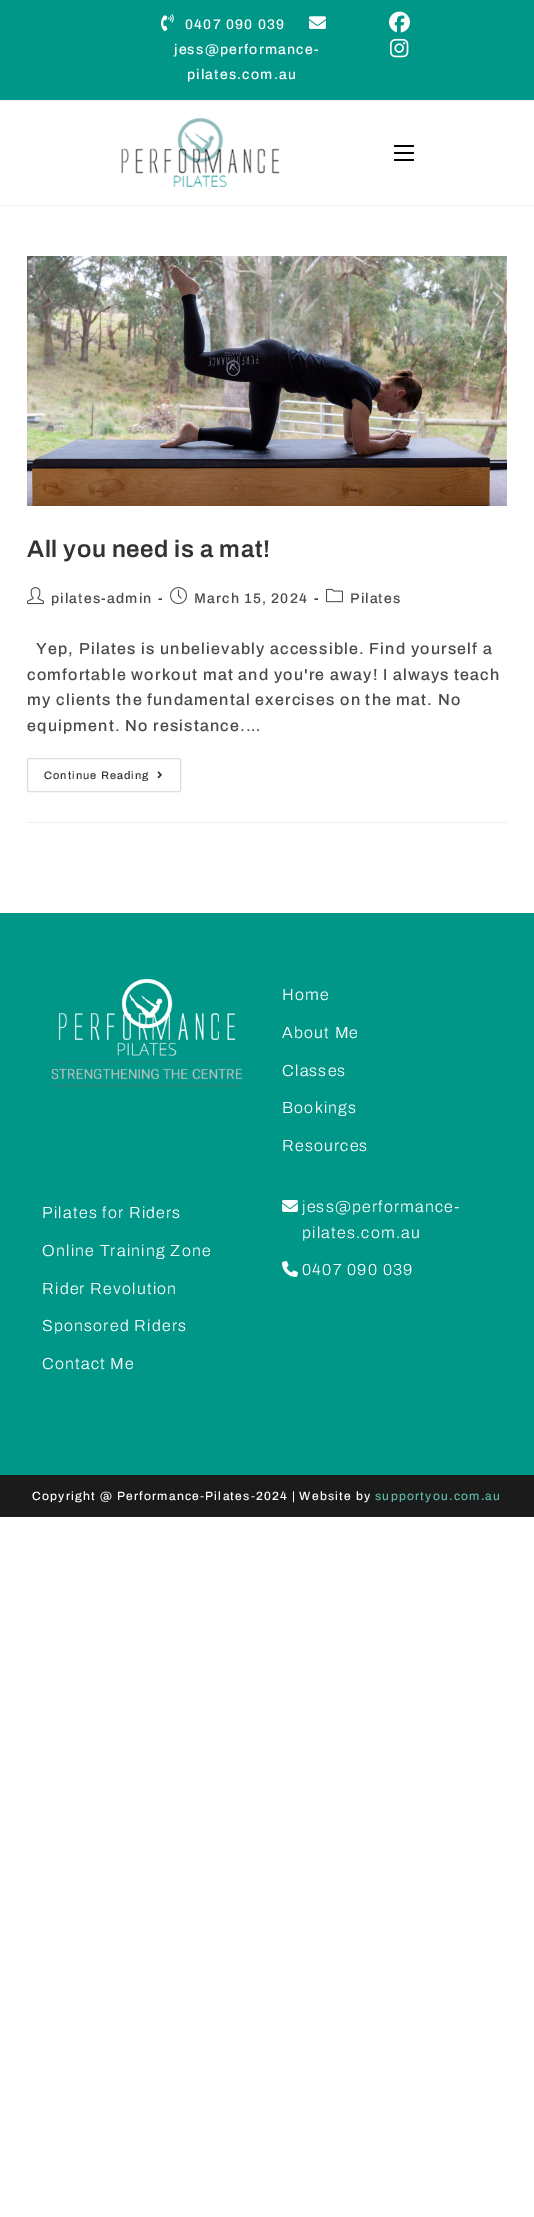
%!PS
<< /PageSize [534 2217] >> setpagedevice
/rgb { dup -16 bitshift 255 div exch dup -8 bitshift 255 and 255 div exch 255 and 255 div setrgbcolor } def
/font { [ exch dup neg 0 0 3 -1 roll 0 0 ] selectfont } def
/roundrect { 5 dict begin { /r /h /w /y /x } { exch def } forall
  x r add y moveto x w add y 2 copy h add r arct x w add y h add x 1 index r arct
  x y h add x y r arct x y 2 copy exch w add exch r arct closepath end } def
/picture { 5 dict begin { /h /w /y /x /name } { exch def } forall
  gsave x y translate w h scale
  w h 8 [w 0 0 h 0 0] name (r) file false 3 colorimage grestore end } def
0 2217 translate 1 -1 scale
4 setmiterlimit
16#FFFFFF rgb
0 0 534 2217 rectfill
16#F1F1F1 rgb
0 100 534 1 rectfill
16#009688 rgb
0 0 534 100 rectfill
(pic1.raw) 161 14 13 18 picture
/Archivo-Medium 14 font
16#FFFFFF rgb
185 29 moveto 1.2 0 (0407 090 039) ashow
(pic2.raw) 309 16 17 13 picture
174 54 moveto 1.2 0 (jess@performance-) ashow
187 79 moveto 1.2 0 (pilates.com.au) ashow
(pic3.raw) 389 11 21 22 picture
(pic4.raw) 390 38 19 20 picture
16#F1F1F1 rgb
0 205 534 1 rectfill
(pic5.raw) 121 118 159 69 picture
16#000000 rgb
394 152 20 2 1 roundrect fill
394 145 20 2 1 roundrect fill
394 159 20 2 1 roundrect fill
16#F1F1F1 rgb
27 822 480 1 rectfill
(pic6.raw) 27 256 480 250 picture
/Archivo-SemiBold 24 font
16#333333 rgb
27 557 moveto 0.6 0 (All you need is a mat!) ashow
(pic7.raw) 27 587 17 18 picture
/Archivo-Medium 14 font
16#4A4A4A rgb
51 603 moveto 1.2 0 (pilates-admin) ashow
/Archivo-Bold 14 font
158 603 moveto 1.2 0 (-) ashow
(pic8.raw) 170 587 17 18 picture
/Archivo-Medium 14 font
194 603 moveto 1.2 0 (March 15, 2024) ashow
/Archivo-Bold 14 font
314 603 moveto 1.2 0 (-) ashow
(pic9.raw) 326 588 17 15 picture
/Archivo-Medium 14 font
350 603 moveto 1.2 0 (Pilates) ashow
/Archivo-Medium 16 font
36 654 moveto 1.2 0 (Yep, Pilates is unbelievably accessible. Find yourself a) ashow
27 680 moveto 1.2 0 (comfortable workout mat and you're away! I always teach) ashow
27 705 moveto 1.2 0 (my clients the fundamental exercises on the mat. No) ashow
27 731 moveto 1.2 0 (equipment. No resistance.…) ashow
16#DDDDDD rgb
27.5 758.5 153 33 1.5 roundrect stroke
/Archivo-Medium 11 font
16#333333 rgb
44 779 moveto 1 0 (Continue Reading) ashow
(pic10.raw) 157 771 5 8 picture
16#009688 rgb
0 913 534 562 rectfill
(pic11.raw) 51 978 192 109 picture
/Archivo-Light 16 font
16#FFFFFF rgb
282 1000 moveto 1.2 0 (Home) ashow
282 1038 moveto 1.2 0 (About Me) ashow
282 1076 moveto 1.2 0 (Classes) ashow
282 1113 moveto 1.2 0 (Bookings) ashow
282 1151 moveto 1.2 0 (Resources) ashow
42 1218 moveto 1.2 0 (Pilates for Riders) ashow
42 1256 moveto 1.2 0 (Online Training Zone) ashow
42 1294 moveto 1.2 0 (Rider Revolution) ashow
42 1331 moveto 1.2 0 (Sponsored Riders) ashow
42 1369 moveto 1.2 0 (Contact Me) ashow
(pic12.raw) 282 1200 16 12 picture
302 1212 moveto 1.2 0 (jess@performance-) ashow
302 1238 moveto 1.2 0 (pilates.com.au) ashow
(pic13.raw) 282 1261 16 16 picture
302 1275 moveto 1.2 0 (0407 090 039) ashow
16#1B1B1B rgb
0 1475 534 42 rectfill
/Archivo-Medium 12 font
16#FFFFFF rgb
32 1500 moveto 1.2 0 (Copyright @ Performance-Pilates-2024 | Website by) ashow
16#5BB8A6 rgb
375 1500 moveto 1.2 0 (supportyou.com.au) ashow
showpage
